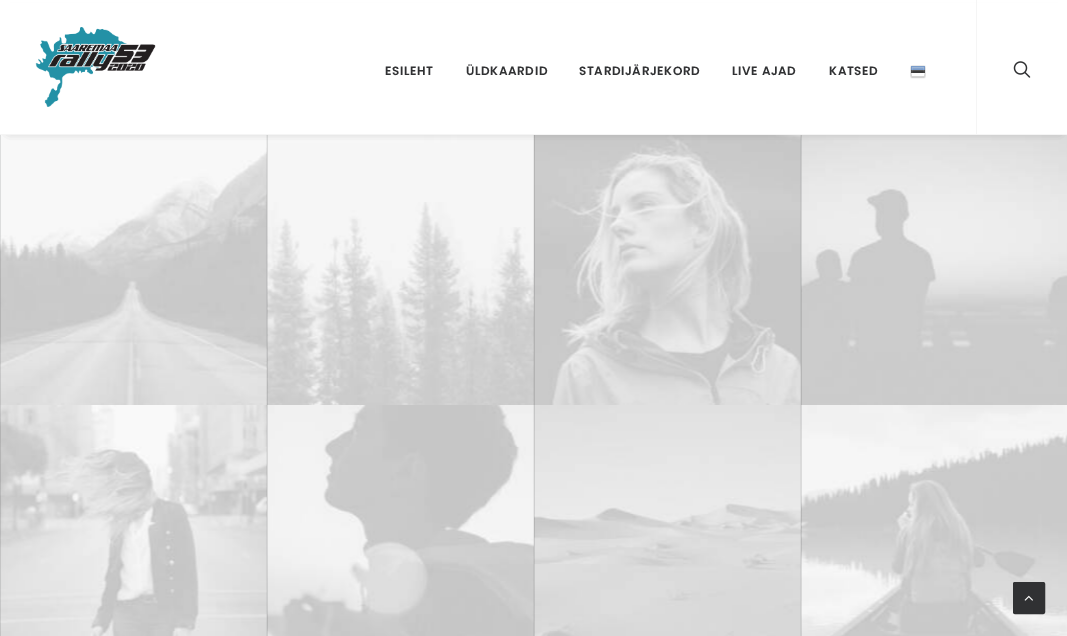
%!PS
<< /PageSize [1067 636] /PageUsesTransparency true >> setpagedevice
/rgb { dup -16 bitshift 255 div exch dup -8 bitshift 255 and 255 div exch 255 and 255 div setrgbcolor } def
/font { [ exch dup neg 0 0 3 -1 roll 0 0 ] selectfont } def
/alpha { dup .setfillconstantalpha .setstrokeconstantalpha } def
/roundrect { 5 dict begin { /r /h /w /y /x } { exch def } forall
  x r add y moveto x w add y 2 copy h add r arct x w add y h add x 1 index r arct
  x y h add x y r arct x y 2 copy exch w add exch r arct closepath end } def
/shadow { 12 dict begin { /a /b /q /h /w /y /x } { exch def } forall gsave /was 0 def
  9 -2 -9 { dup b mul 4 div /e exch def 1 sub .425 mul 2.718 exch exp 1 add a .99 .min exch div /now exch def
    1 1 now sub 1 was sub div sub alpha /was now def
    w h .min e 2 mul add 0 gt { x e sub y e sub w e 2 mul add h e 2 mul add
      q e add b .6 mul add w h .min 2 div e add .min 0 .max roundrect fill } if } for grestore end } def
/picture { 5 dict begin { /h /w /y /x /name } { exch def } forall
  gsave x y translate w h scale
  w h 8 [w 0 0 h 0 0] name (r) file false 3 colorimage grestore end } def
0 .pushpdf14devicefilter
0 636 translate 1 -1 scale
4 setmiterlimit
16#FFFFFF rgb
0 0 1067 636 rectfill
(pic4.raw) 0 135 267 270 picture
(pic5.raw) 267 135 267 270 picture
(pic6.raw) 534 135 267 270 picture
(pic7.raw) 801 135 266 270 picture
16#000000 rgb
10 14 1048 115 0 5 0.6 shadow
16#FFFFFF rgb
0 3 1067 131 rectfill
16#F5F5F5 rgb
0 134 1067 1 rectfill
(pic1.raw) 35 27 121 80 picture
/Poppins-SemiBold 12 font
16#303133 rgb
385 75 moveto 0.6 0 (ESILEHT) ashow
466 75 moveto 0.6 0 (ÜLDKAARDID) ashow
579 75 moveto 0.6 0 (STARDIJÄRJEKORD) ashow
732 75 moveto 0.6 0 (LIVE AJAD) ashow
829 75 moveto 0.6 0 (KATSED) ashow
(pic2.raw) 910 65 16 14 picture
16#F5F5F5 rgb
976 0 1 134 rectfill
(pic3.raw) 1013 61 18 17 picture
(pic8.raw) 0 405 267 231 picture
(pic9.raw) 267 405 267 231 picture
(pic10.raw) 534 405 267 231 picture
(pic11.raw) 801 405 266 231 picture
16#303133 rgb
1013.5 582.5 31 31 1.5 roundrect gsave fill grestore
stroke
(pic12.raw) 1024 595 9 6 picture
.poppdf14devicefilter showpage
